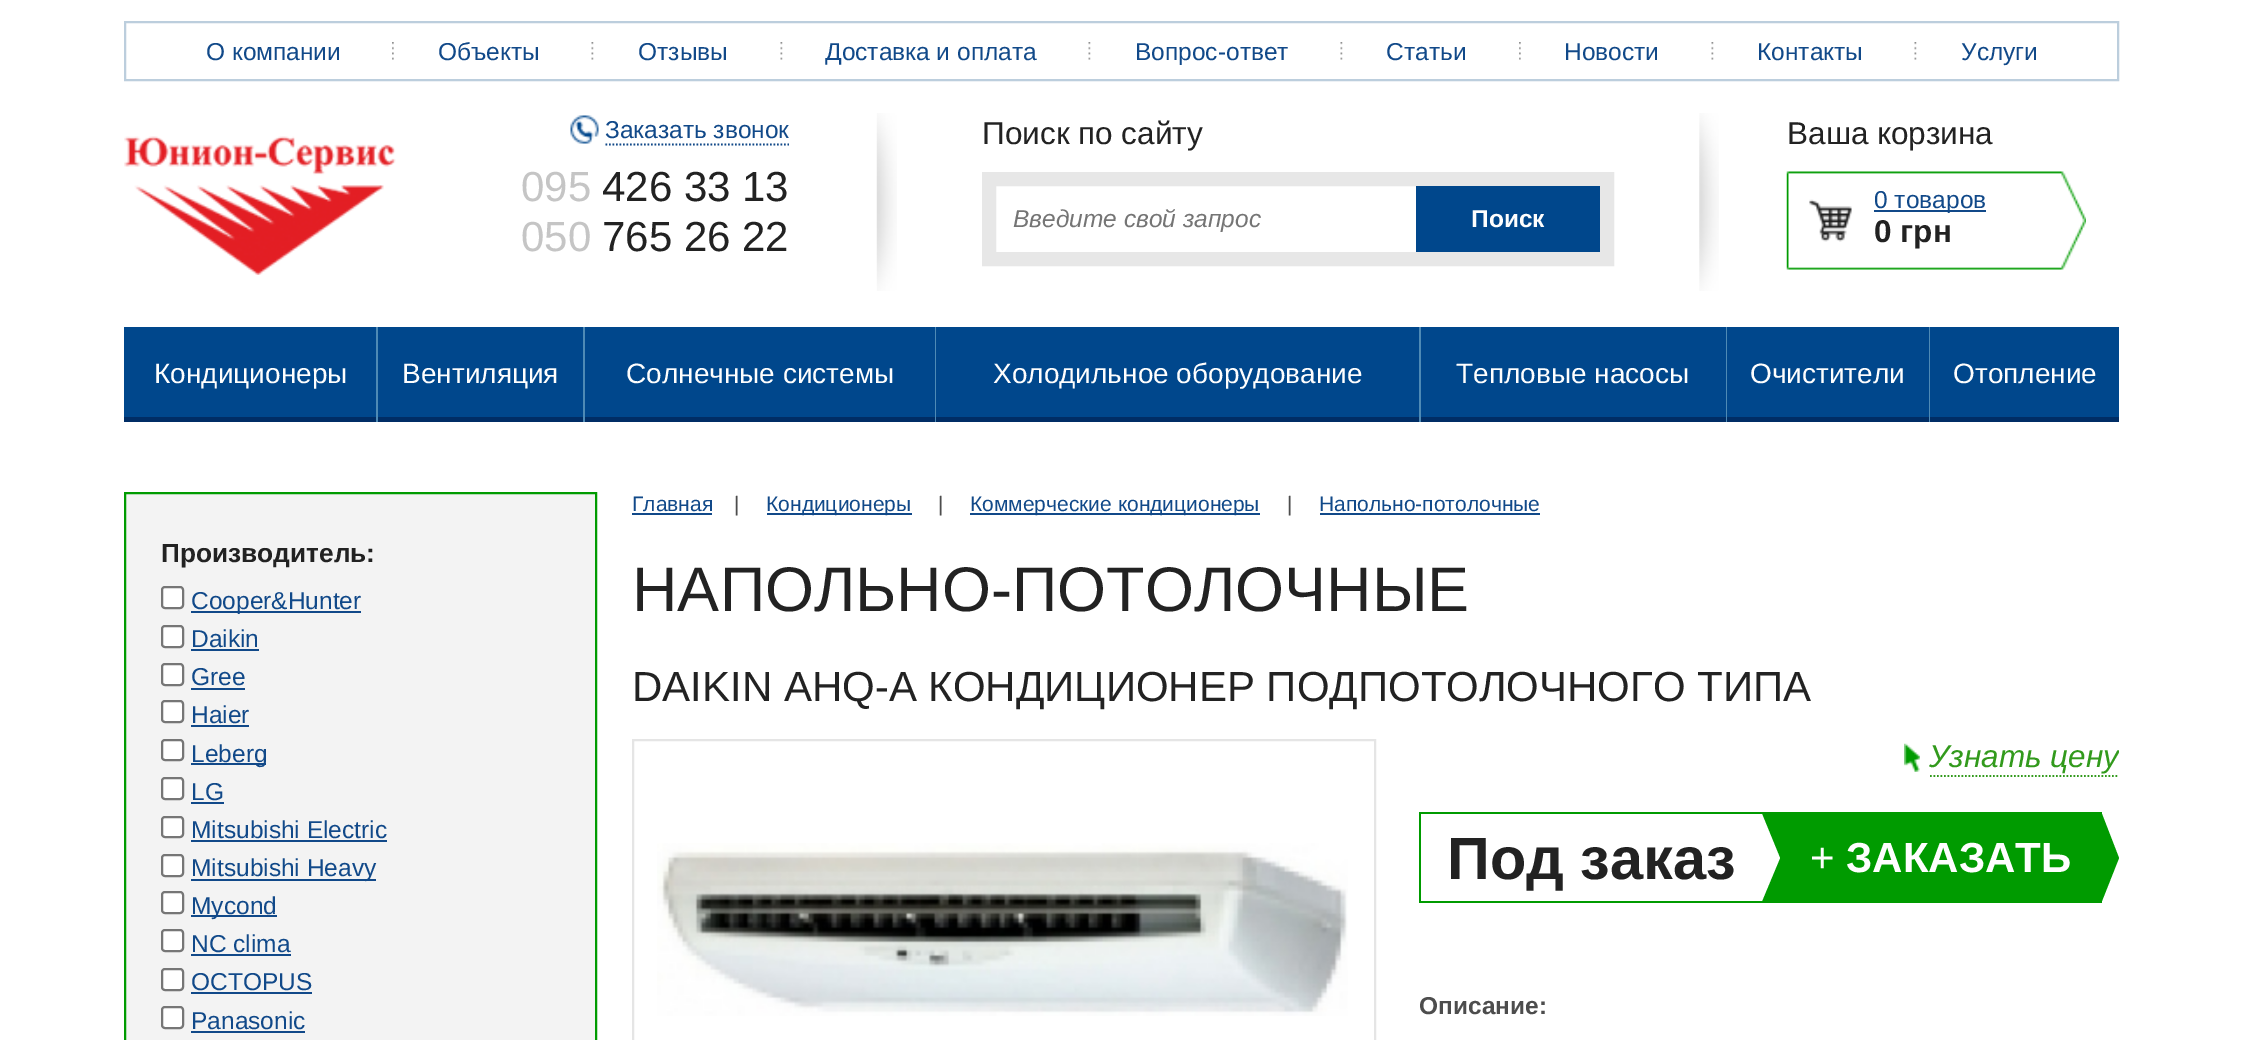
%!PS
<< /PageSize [2243 1040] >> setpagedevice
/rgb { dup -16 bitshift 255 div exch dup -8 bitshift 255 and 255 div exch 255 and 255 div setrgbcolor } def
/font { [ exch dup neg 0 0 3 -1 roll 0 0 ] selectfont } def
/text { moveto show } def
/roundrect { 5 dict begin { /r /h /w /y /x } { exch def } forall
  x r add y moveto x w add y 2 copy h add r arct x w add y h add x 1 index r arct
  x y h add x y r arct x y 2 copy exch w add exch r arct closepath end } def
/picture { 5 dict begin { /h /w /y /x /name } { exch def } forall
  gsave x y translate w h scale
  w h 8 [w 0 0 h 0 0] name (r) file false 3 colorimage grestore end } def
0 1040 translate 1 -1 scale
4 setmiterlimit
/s1 { /LiberationSans-Regular 24.5 font 16#114989 rgb } def
/s2 { /LiberationSans-Regular 42 font 16#C5C5C5 rgb } def
/s3 { /LiberationSans-Regular 42 font 16#222222 rgb } def
/s4 { /LiberationSans-Regular 31.5 font 16#222222 rgb } def
/s5 { /LiberationSans-Italic 24.5 font 16#757575 rgb } def
/s6 { /LiberationSans-Bold 24.5 font 16#FEFEFE rgb } def
/s7 { /LiberationSans-Bold 31.5 font 16#222222 rgb } def
/s8 { /LiberationSans-Regular 28 font 16#FEFEFE rgb } def
/s9 { /LiberationSans-Bold 26.25 font 16#222222 rgb } def
/s10 { /LiberationSans-Regular 21 font 16#114989 rgb } def
/s11 { /LiberationSans-Regular 21 font 16#4D4D4D rgb } def
/s12 { /LiberationSans-Regular 63 font 16#222222 rgb } def
/s13 { /LiberationSans-Italic 31.5 font 16#329A1C rgb } def
/s14 { /LiberationSans-Bold 59.5 font 16#222222 rgb } def
/s15 { /LiberationSans-Regular 42 font 16#FEFEFE rgb } def
/s16 { /LiberationSans-Bold 42 font 16#FEFEFE rgb } def
/s17 { /LiberationSans-Bold 24.5 font 16#4D4D4D rgb } def
16#FFFFFF rgb
0 0 2243 1040 rectfill
16#BCCEDD rgb
2 setlinewidth
125 22 1993 58 rectstroke
s1
(О компании) 206 60 text
(pic1.raw) 392 42 2 18 picture
(Объекты) 438 60 text
(pic2.raw) 591 42 3 18 picture
(Отзывы) 638 60 text
(pic2.raw) 780 42 3 18 picture
(Доставка и оплата) 825 60 text
(pic2.raw) 1088 42 3 18 picture
(Вопрос-ответ) 1135 60 text
(pic2.raw) 1340 42 3 18 picture
(Статьи) 1386 60 text
(pic1.raw) 1519 42 2 18 picture
(Новости) 1564 60 text
(pic2.raw) 1711 42 3 18 picture
(Контакты) 1757 60 text
(pic2.raw) 1914 42 3 18 picture
(Услуги) 1961 60 text
(pic3.raw) 124 136 272 139 picture
(pic4.raw) 570 115 29 29 picture
(Заказать звонок) 605 138 text
1.8 setlinewidth
[1.75 1.75] 0 setdash
605.5 144.5 moveto 789 144.5 lineto stroke
s2
(095) 521 201 text
s3
(426 33 13) 602 201 text
s2
(050) 521 251 text
s3
(765 26 22) 602 251 text
(pic5.raw) 876 113 21 178 picture
s4
(Поиск по сайту) 982 144 text
16#E7E7E7 rgb
14 setlinewidth
[] 0 setdash
989 179 618 80 rectstroke
s5
(Введите свой запрос) 1013 227 text
16#00478C rgb
1416 186 184 66 rectfill
s6
(Поиск) 1471 227 text
(pic6.raw) 1699 113 20 178 picture
s4
(Ваша корзина) 1787 144 text
(pic7.raw) 1786 171 300 99 picture
16#114989 rgb
1874 210 112 2 rectfill
s1
(0 товаров) 1874 208 text
s7
(0 грн) 1874 242 text
16#00478C rgb
124 327 252 90 rectfill
16#002D65 rgb
124 417 252 5 rectfill
s8
(Кондиционеры) 154 383 text
16#4E8AB5 rgb
376 327 2 95 rectfill
16#00478C rgb
378 327 205 90 rectfill
16#002D65 rgb
378 417 205 5 rectfill
s8
(Вентиляция) 402 383 text
16#4E8AB5 rgb
583 327 2 95 rectfill
16#00478C rgb
585 327 350 90 rectfill
16#002D65 rgb
585 417 350 5 rectfill
s8
(Солнечные системы) 626 383 text
16#4E8AB5 rgb
935 327 1 95 rectfill
16#00478C rgb
936 327 483 90 rectfill
16#002D65 rgb
936 417 483 5 rectfill
s8
(Холодильное оборудование) 993 383 text
16#4E8AB5 rgb
1419 327 2 95 rectfill
16#00478C rgb
1421 327 305 90 rectfill
16#002D65 rgb
1421 417 305 5 rectfill
s8
(Тепловые насосы) 1456 383 text
16#4E8AB5 rgb
1726 327 1 95 rectfill
16#00478C rgb
1727 327 202 90 rectfill
16#002D65 rgb
1727 417 202 5 rectfill
s8
(Очистители) 1750 383 text
16#4E8AB5 rgb
1929 327 1 95 rectfill
16#00478C rgb
1930 327 189 90 rectfill
16#002D65 rgb
1930 417 189 5 rectfill
s8
(Отопление) 1953 383 text
16#F3F3F3 rgb
125 493 moveto 596 493 lineto 596 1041 lineto 125 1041 lineto closepath gsave fill grestore
16#009B00 rgb
2 setlinewidth
stroke
s9
(Производитель:) 161 562 text
16#FFFFFF rgb
162 587 21 21 3 roundrect gsave fill grestore
16#767676 rgb
stroke
16#114989 rgb
191 611 170 2 rectfill
s1
(Cooper&Hunter) 191 609 text
16#FFFFFF rgb
162 626 21 21 3 roundrect gsave fill grestore
16#767676 rgb
stroke
s1
(Daikin) 191 647 text
191 649 68 2 rectfill
16#FFFFFF rgb
162 664 21 21 3 roundrect gsave fill grestore
16#767676 rgb
stroke
s1
(Gree) 191 685 text
191 688 54 2 rectfill
16#FFFFFF rgb
162 701 21 21 3 roundrect gsave fill grestore
16#767676 rgb
stroke
s1
(Haier) 191 723 text
191 725 58 2 rectfill
16#FFFFFF rgb
162 740 21 20 3 roundrect gsave fill grestore
16#767676 rgb
stroke
16#114989 rgb
191 763 75 2 rectfill
(Leberg) 191 762 text
16#FFFFFF rgb
162 778 21 21 3 roundrect gsave fill grestore
16#767676 rgb
stroke
s1
(LG) 191 800 text
191 802 33 2 rectfill
16#FFFFFF rgb
162 817 21 20 3 roundrect gsave fill grestore
16#767676 rgb
stroke
s1
(Mitsubishi Electric) 191 838 text
191 840 196 2 rectfill
16#FFFFFF rgb
162 855 21 21 3 roundrect gsave fill grestore
16#767676 rgb
stroke
16#114989 rgb
191 879 185 2 rectfill
(Mitsubishi Heavy) 191 876 text
16#FFFFFF rgb
162 892 21 21 3 roundrect gsave fill grestore
16#767676 rgb
stroke
16#114989 rgb
191 915 86 2 rectfill
(Mycond) 191 914 text
16#FFFFFF rgb
162 930 21 21 3 roundrect gsave fill grestore
16#767676 rgb
stroke
s1
(NC clima) 191 952 text
191 954 100 2 rectfill
16#FFFFFF rgb
162 969 21 21 3 roundrect gsave fill grestore
16#767676 rgb
stroke
s1
(OCTOPUS) 191 990 text
191 992 121 2 rectfill
16#FFFFFF rgb
162 1007 21 21 3 roundrect gsave fill grestore
16#767676 rgb
stroke
s1
(Panasonic) 191 1029 text
191 1031 114 2 rectfill
s10
(Главная) 632 511 text
632 513 80 2 rectfill
s11
(|) 734 511 text
16#114989 rgb
767 513 145 2 rectfill
(Кондиционеры) 766 511 text
s11
(|) 938 511 text
16#114989 rgb
970 513 290 2 rectfill
(Коммерческие кондиционеры) 970 511 text
s11
(|) 1287 511 text
s10
(Напольно-потолочные) 1319 511 text
1320 513 220 2 rectfill
s12
(НАПОЛЬНО-ПОТОЛОЧНЫЕ) 632 611 text
s3
(DAIKIN AHQ-A КОНДИЦИОНЕР ПОДПОТОЛОЧНОГО ТИПА) 632 701 text
16#E5E5E5 rgb
633 740 742 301 rectstroke
(pic8.raw) 657 843 691 173 picture
(pic9.raw) 1904 743 16 29 picture
16#329A1C rgb
1.8 setlinewidth
[1.75 1.75] 0 setdash
1930 776 moveto 2119 776 lineto stroke
gsave
1419 739 700 38 rectclip
s13
(Узнать цену) 1929 767 text
grestore
16#009B00 rgb
1419 812 683 2 rectfill
1419 901 683 2 rectfill
1419 812 2 91 rectfill
s14
(Под заказ) 1447 879 text
16#009B00 rgb
1762 814 340 87 rectfill
16#FFFFFF rgb
1762 901 moveto 1762 814 lineto 1780 858 lineto closepath fill
s15
(+) 1810 872 text
s16
(ЗАКАЗАТЬ) 1846 872 text
16#009B00 rgb
2102 901 moveto 2102 814 lineto 2119 858 lineto closepath fill
s17
(Описание:) 1419 1014 text
showpage
